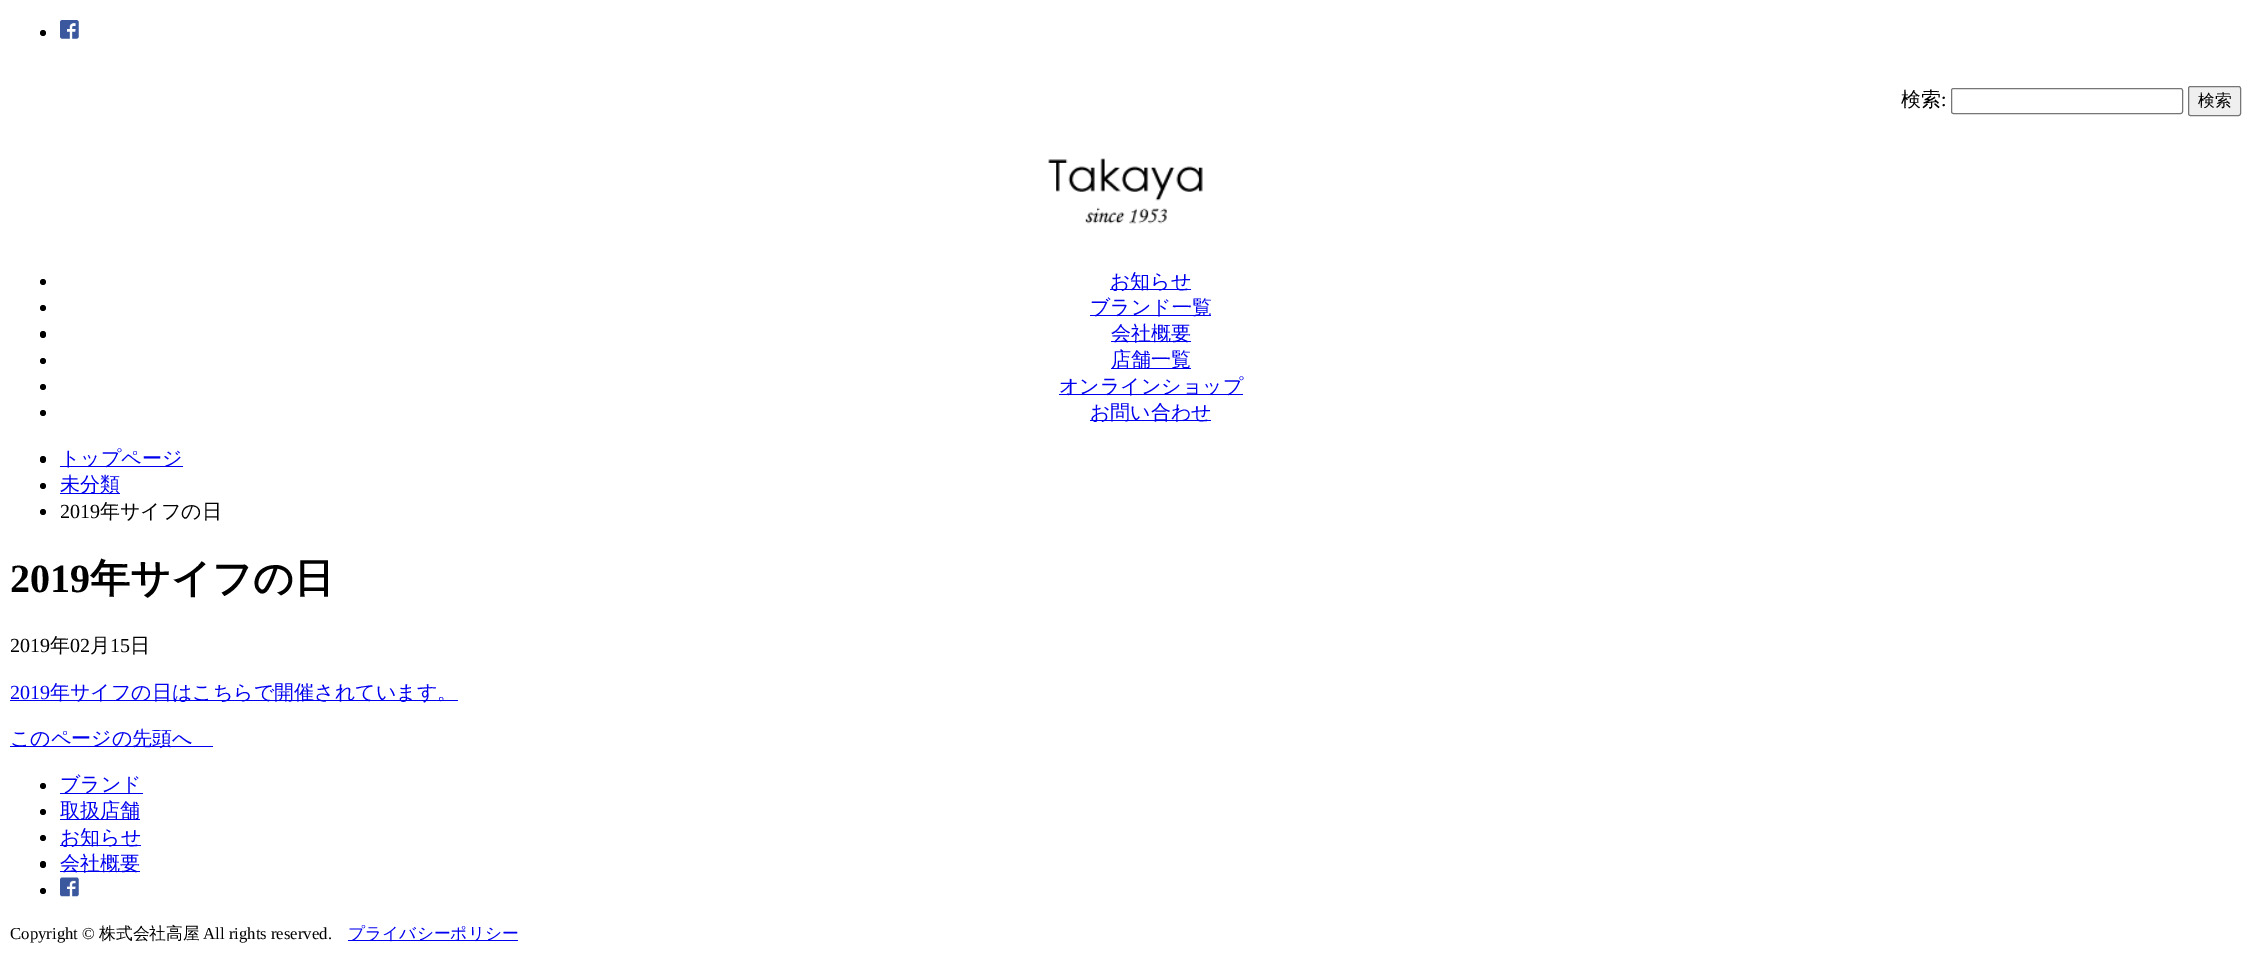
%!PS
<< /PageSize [2251 974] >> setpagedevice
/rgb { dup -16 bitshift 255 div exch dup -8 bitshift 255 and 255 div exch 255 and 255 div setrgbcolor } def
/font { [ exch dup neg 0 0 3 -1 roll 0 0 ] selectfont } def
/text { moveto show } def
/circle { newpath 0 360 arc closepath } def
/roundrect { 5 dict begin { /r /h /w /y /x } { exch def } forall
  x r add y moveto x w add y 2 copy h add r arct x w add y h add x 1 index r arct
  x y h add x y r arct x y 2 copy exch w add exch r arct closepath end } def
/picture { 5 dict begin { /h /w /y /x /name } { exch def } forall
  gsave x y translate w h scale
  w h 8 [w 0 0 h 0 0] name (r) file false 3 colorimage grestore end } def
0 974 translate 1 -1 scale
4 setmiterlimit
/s1 { /WenQuanYiZenHei-Medium 20 font 16#000000 rgb } def
/s2 { /LiberationSerif-Regular 20 font 16#000000 rgb } def
/s3 { /WenQuanYiZenHei-Medium 16.75 font 16#000000 rgb } def
/s4 { /WenQuanYiZenHei-Medium 20 font 16#0000EE rgb } def
/s5 { /LiberationSerif-Bold 40 font 16#000000 rgb } def
/s6 { /WenQuanYiZenHei-Bold 40 font 16#000000 rgb } def
/s7 { /LiberationSerif-Regular 20 font 16#0000EE rgb } def
/s8 { /LiberationSerif-Regular 16.75 font 16#000000 rgb } def
/s9 { /WenQuanYiZenHei-Medium 16.75 font 16#0000EE rgb } def
16#FFFFFF rgb
0 0 2251 974 rectfill
16#000000 rgb
43 33 3 circle fill
(pic1.raw) 60 20 19 19 picture
s1
(検索) 1901 106 text
s2
(:) 1941 106 text
16#767676 rgb
1951.5 88.5 231 25 2 roundrect stroke
16#EFEFEF rgb
2188.5 86.5 52 29 2 roundrect gsave fill grestore
16#767676 rgb
stroke
s3
(検索) 2198 106 text
(pic2.raw) 1048 158 155 66 picture
43 282 3 circle fill
16#0000EE rgb
1110 289 81 1 rectfill
s4
(お知らせ) 1110 288 text
16#000000 rgb
43 308 3 circle fill
16#0000EE rgb
1090 315 121 1 rectfill
(ブランド一覧) 1090 314 text
16#000000 rgb
40 331 6 7 3 roundrect fill
16#0000EE rgb
1111 341 80 1 rectfill
(会社概要) 1111 340 text
16#000000 rgb
43 361 3 circle fill
16#0000EE rgb
1111 368 80 1 rectfill
(店舗一覧) 1111 366 text
16#000000 rgb
43 387 3 circle fill
16#0000EE rgb
1059 394 184 1 rectfill
(オンラインショップ) 1059 393 text
16#000000 rgb
43 413 3 circle fill
16#0000EE rgb
1090 420 121 1 rectfill
(お問い合わせ) 1090 419 text
16#000000 rgb
40 456 6 7 3 roundrect fill
16#0000EE rgb
60 466 123 1 rectfill
(トップページ) 60 465 text
16#000000 rgb
43 486 3 circle fill
16#0000EE rgb
60 493 60 1 rectfill
(未分類) 60 491 text
16#000000 rgb
43 512 3 circle fill
s2
(2019) 60 518 text
s1
(年サイフの日) 100 518 text
s5
(2019) 10 592 text
s6
(年サイフの日) 90 592 text
s2
(2019) 10 652 text
s1
(年) 50 652 text
s2
(02) 70 652 text
s1
(月) 90 652 text
s2
(15) 110 652 text
s1
(日) 130 652 text
s7
(2019) 10 699 text
10 700 448 1 rectfill
s4
(年サイフの日はこちらで開催されています。) 50 699 text
10 746 203 1 rectfill
(このページの先頭へ) 10 745 text
16#000000 rgb
43 786 3 circle fill
16#0000EE rgb
60 793 83 1 rectfill
(ブランド) 60 791 text
16#000000 rgb
43 812 3 circle fill
16#0000EE rgb
60 819 80 1 rectfill
(取扱店舗) 60 817 text
16#000000 rgb
43 838 3 circle fill
16#0000EE rgb
60 845 81 1 rectfill
(お知らせ) 60 844 text
16#000000 rgb
40 861 6 7 3 roundrect fill
16#0000EE rgb
60 871 80 1 rectfill
(会社概要) 60 870 text
16#000000 rgb
43 891 3 circle fill
(pic3.raw) 60 877 19 20 picture
s8
(Copyright ©) 10 939 text
s3
(株式会社高屋) 99 939 text
s8
(All rights reserved.) 203 939 text
16#0000EE rgb
348 940 170 1 rectfill
s9
(プライバシーポリシー) 348 939 text
showpage
